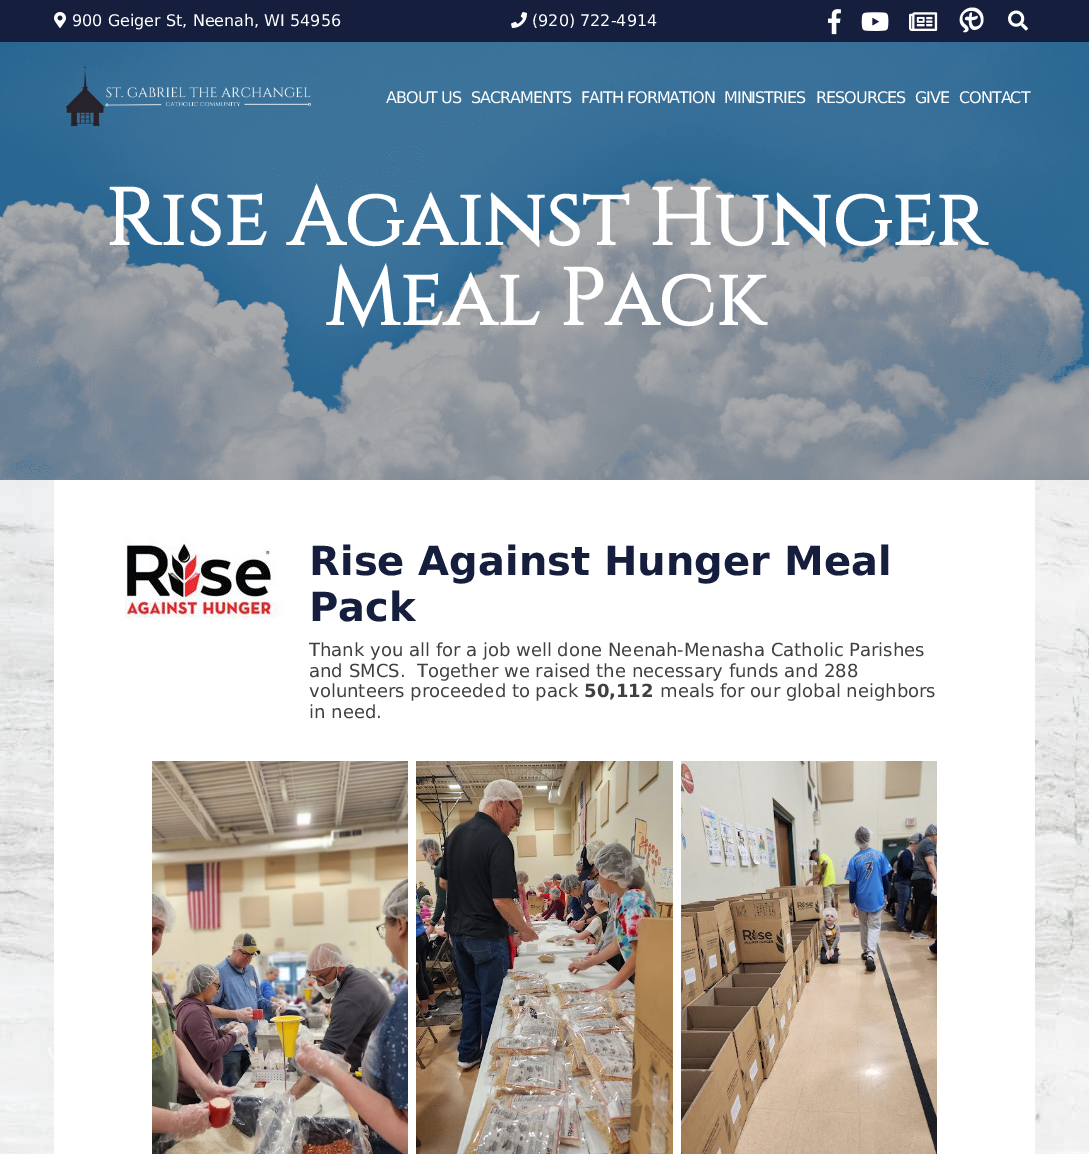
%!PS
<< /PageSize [1089 1154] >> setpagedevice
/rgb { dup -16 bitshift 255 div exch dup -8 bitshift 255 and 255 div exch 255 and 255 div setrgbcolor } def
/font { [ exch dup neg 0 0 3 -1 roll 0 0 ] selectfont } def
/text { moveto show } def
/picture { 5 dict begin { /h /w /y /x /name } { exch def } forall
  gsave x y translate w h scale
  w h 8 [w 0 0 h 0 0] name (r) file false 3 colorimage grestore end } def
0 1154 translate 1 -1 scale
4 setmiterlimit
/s1 { /DejaVuSans-Regular 16 font 16#FFFFFF rgb } def
/s2 { /Cinzel-Bold 80 font 16#FFFFFF rgb } def
/s3 { /DejaVuSans-Bold 40 font 16#161E3E rgb } def
/s4 { /DejaVuSans-Regular 18 font 16#404040 rgb } def
/s5 { /DejaVuSans-Bold 18 font 16#404040 rgb } def
16#FFFFFF rgb
0 0 1089 1154 rectfill
16#161E3E rgb
0 0 1089 42 rectfill
(pic1.raw) 54 12 12 16 picture
s1
(900 Geiger St, Neenah, WI 54956) 72 26 text
(pic2.raw) 511 12 16 16 picture
(\(920\) 722-4914) 532 26 text
(pic3.raw) 828 9 13 26 picture
(pic4.raw) 861 12 28 19 picture
(pic5.raw) 909 12 29 19 picture
(pic6.raw) 959 7 25 26 picture
(pic7.raw) 1008 10 20 21 picture
(pic9.raw) 0 42 1089 438 picture
(pic8.raw) 65 65 246 62 picture
386 103 moveto -1 0 (ABOUT US) ashow
471 103 moveto -1 0 (SACRAMENTS) ashow
581 103 moveto -1 0 (FAITH FORMATION) ashow
724 103 moveto -1 0 (MINISTRIES) ashow
816 103 moveto -1 0 (RESOURCES) ashow
915 103 moveto -1 0 (GIVE) ashow
959 103 moveto -1 0 (CONTACT) ashow
s2
(Rise Against Hunger) 105 245 text
(Meal Pack) 325 325 text
(pic10.raw) 0 480 1089 674 picture
54 480 981 674 rectfill
(pic11.raw) 125 538 159 81 picture
s3
(Rise Against Hunger Meal) 309 575 text
(Pack) 309 621 text
s4
(Thank you all for a job well done Neenah-Menasha Catholic Parishes) 309 656 text
(and SMCS.  Together we raised the necessary funds and 288) 309 677 text
(volunteers proceeded to pack) 309 697 text
s5
(50,112) 584 697 text
s4
(meals for our global neighbors) 660 697 text
(in need.) 309 718 text
(pic12.raw) 152 761 256 393 picture
(pic13.raw) 416 761 257 393 picture
(pic14.raw) 681 761 256 393 picture
showpage
